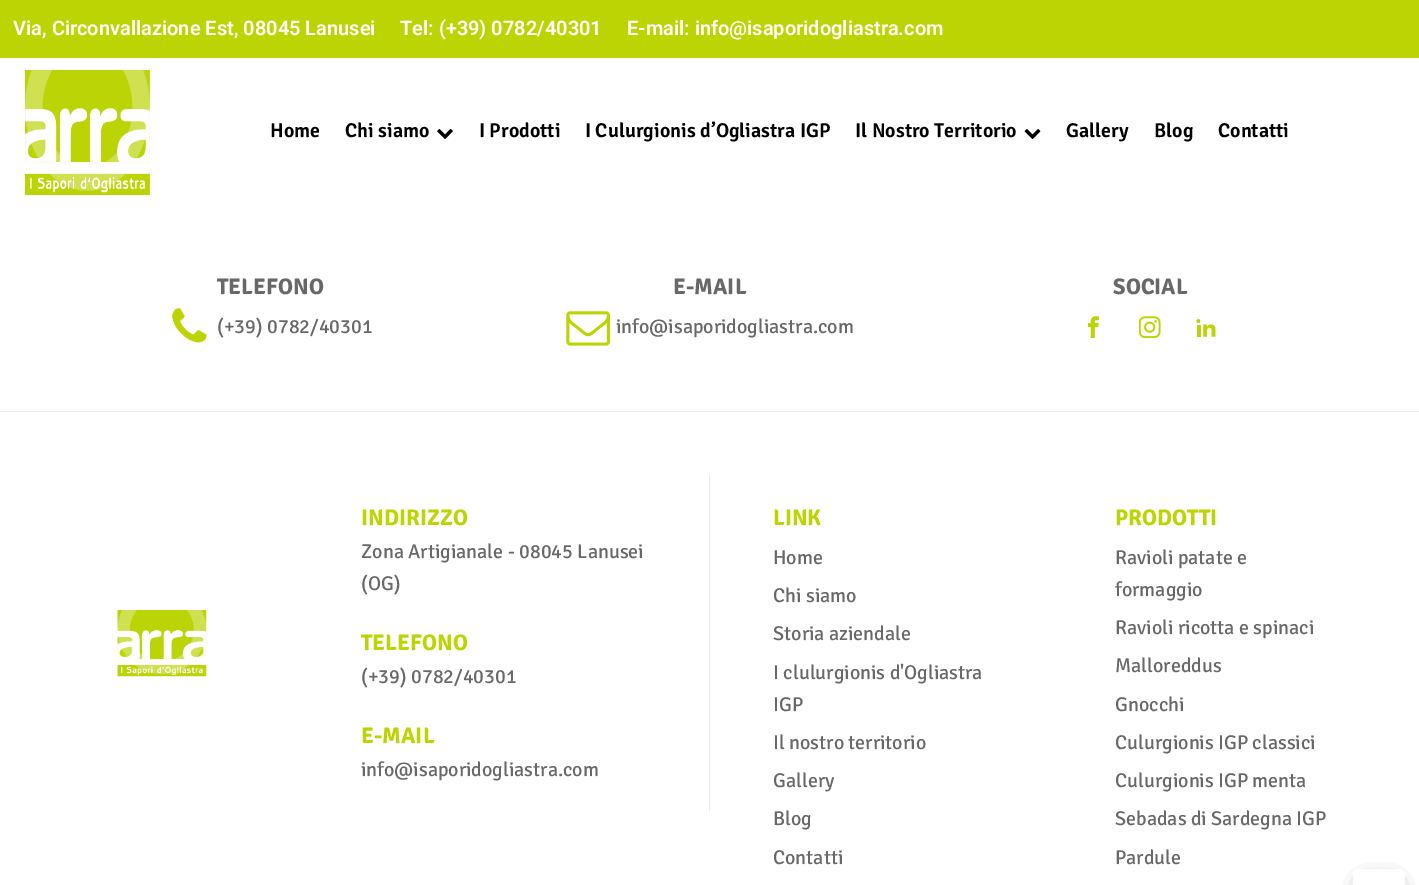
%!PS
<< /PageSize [1419 885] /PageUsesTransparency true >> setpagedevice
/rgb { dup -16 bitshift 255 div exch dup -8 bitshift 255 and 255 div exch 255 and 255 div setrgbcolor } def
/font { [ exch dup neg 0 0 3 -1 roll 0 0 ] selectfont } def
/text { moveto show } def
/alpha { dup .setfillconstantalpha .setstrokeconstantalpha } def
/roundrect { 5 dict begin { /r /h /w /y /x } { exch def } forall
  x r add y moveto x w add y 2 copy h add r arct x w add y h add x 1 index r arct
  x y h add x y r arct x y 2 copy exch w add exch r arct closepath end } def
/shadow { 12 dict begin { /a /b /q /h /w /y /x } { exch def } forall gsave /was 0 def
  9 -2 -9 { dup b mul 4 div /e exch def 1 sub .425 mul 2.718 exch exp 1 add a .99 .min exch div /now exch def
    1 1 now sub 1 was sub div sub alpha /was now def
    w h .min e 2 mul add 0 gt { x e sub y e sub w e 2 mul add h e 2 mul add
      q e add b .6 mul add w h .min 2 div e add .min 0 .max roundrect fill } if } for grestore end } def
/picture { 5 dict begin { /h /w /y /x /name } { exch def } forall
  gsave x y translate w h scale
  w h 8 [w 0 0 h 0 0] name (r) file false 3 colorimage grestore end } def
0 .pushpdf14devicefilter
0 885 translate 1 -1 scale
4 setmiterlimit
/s1 { /Roboto-SemiBold 20 font 16#FFFFFF rgb } def
/s2 { /Signika-SemiBold 20 font 16#000000 rgb } def
/s3 { /Signika-Bold 22.5 font 16#686867 rgb } def
/s4 { /Signika-Regular 20 font 16#686867 rgb } def
/s5 { /Signika-Bold 22.5 font 16#BCD403 rgb } def
16#BCD403 rgb
0 0 1419 885 rectfill
s1
(Via, Circonvallazione Est, 08045 Lanusei) 13 35 text
(Tel: \(+39\) 0782/40301) 400 35 text
(E-mail: info@isaporidogliastra.com) 627 35 text
0 58 1419 827 rectfill
(pic1.raw) 25 70 125 125 picture
s2
(Home) 270 137 text
(Chi siamo) 345 137 text
(pic2.raw) 437 129 16 10 picture
(I Prodotti) 479 137 text
(I Culurgionis d’Ogliastra IGP) 585 137 text
(Il Nostro Territorio) 855 137 text
(pic3.raw) 1024 129 17 10 picture
(Gallery) 1066 137 text
(Blog) 1154 137 text
(Contatti) 1218 137 text
16#E8E8E8 rgb
0 411 1419 1 rectfill
s3
(TELEFONO) 217 294 text
(pic4.raw) 172 308 35 35 picture
s4
(\(+39\) 0782/40301) 217 333 text
s3
(E-MAIL) 673 294 text
(pic5.raw) 566 311 44 35 picture
s4
(info@isaporidogliastra.com) 616 333 text
s3
(SOCIAL) 1113 294 text
(pic6.raw) 1087 316 12 22 picture
(pic7.raw) 1139 316 22 22 picture
(pic8.raw) 1196 319 20 18 picture
16#E8E8E8 rgb
709 475 1 336 rectfill
(pic9.raw) 117 610 90 67 picture
s5
(INDIRIZZO) 361 525 text
s4
(Zona Artigianale - 08045 Lanusei) 361 558 text
(\(OG\)) 361 590 text
s5
(TELEFONO) 361 650 text
s4
(\(+39\) 0782/40301) 361 683 text
s5
(E-MAIL) 361 743 text
s4
(info@isaporidogliastra.com) 361 776 text
s5
(LINK) 773 525 text
s4
(Home) 773 564 text
(Chi siamo) 773 602 text
(Storia aziendale) 773 640 text
(I clulurgionis d'Ogliastra) 773 679 text
(IGP) 773 711 text
(Il nostro territorio) 773 749 text
(Gallery) 773 787 text
(Blog) 773 825 text
(Contatti) 773 864 text
s5
(PRODOTTI) 1115 525 text
s4
(Ravioli patate e) 1115 564 text
(formaggio) 1115 596 text
(Ravioli ricotta e spinaci) 1115 634 text
(Malloreddus) 1115 672 text
(Gnocchi) 1115 711 text
(Culurgionis IGP classici) 1115 749 text
(Culurgionis IGP menta) 1115 787 text
(Sebadas di Sardegna IGP) 1115 825 text
(Pardule) 1115 864 text
16#1E1E1E rgb
1365 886 28 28 0 10.5 1 shadow
16#FFFFFF rgb
1353 869 52 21 5 roundrect fill
.poppdf14devicefilter showpage
